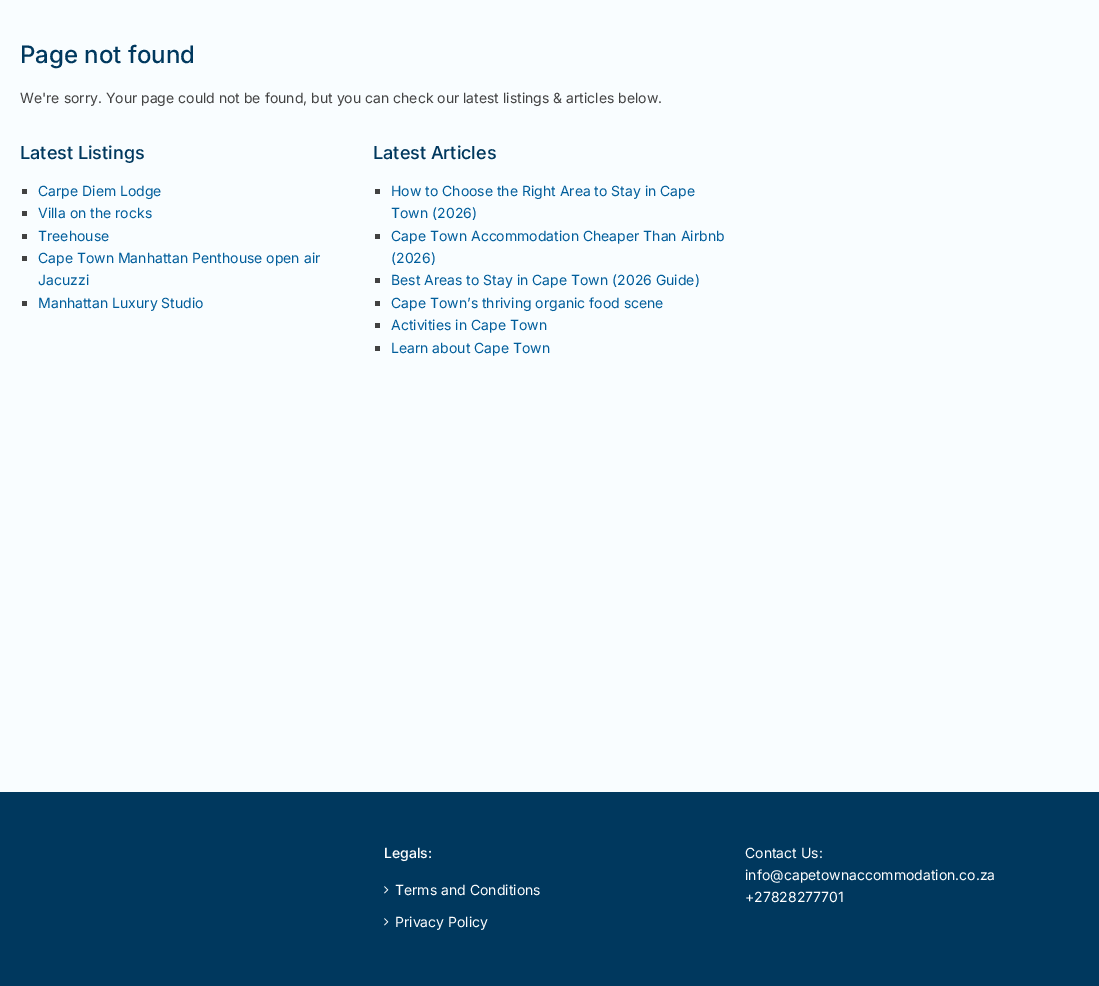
%!PS
<< /PageSize [1099 986] >> setpagedevice
/rgb { dup -16 bitshift 255 div exch dup -8 bitshift 255 and 255 div exch 255 and 255 div setrgbcolor } def
/font { [ exch dup neg 0 0 3 -1 roll 0 0 ] selectfont } def
/text { moveto show } def
/picture { 5 dict begin { /h /w /y /x /name } { exch def } forall
  gsave x y translate w h scale
  w h 8 [w 0 0 h 0 0] name (r) file false 3 colorimage grestore end } def
0 986 translate 1 -1 scale
4 setmiterlimit
/s1 { /Inter-Medium 24 font 16#00385E rgb } def
/s2 { /Inter-Regular 14 font 16#424242 rgb } def
/s3 { /Inter-Medium 18 font 16#00385E rgb } def
/s4 { /Inter-Regular 14 font 16#005D9B rgb } def
/s5 { /Inter-Medium 14 font 16#FFFFFF rgb } def
/s6 { /Inter-Regular 14 font 16#FFFFFF rgb } def
16#F9FDFF rgb
0 0 1099 986 rectfill
s1
(Page not found) 20 63 text
s2
(We're sorry. Your page could not be found, but you can check our latest listings & articles below.) 20 103 text
s3
(Latest Listings) 20 159 text
16#424242 rgb
22 189 5 5 rectfill
s4
(Carpe Diem Lodge) 38 196 text
16#424242 rgb
22 211 5 5 rectfill
s4
(Villa on the rocks) 38 218 text
16#424242 rgb
22 234 5 5 rectfill
s4
(Treehouse) 38 241 text
16#424242 rgb
22 256 5 5 rectfill
s4
(Cape Town Manhattan Penthouse open air) 38 263 text
(Jacuzzi) 38 285 text
16#424242 rgb
22 301 5 5 rectfill
s4
(Manhattan Luxury Studio) 38 308 text
s3
(Latest Articles) 373 159 text
16#424242 rgb
375 189 5 5 rectfill
s4
(How to Choose the Right Area to Stay in Cape) 391 196 text
(Town \(2026\)) 391 218 text
16#424242 rgb
375 234 5 5 rectfill
s4
(Cape Town Accommodation Cheaper Than Airbnb) 391 241 text
(\(2026\)) 391 263 text
16#424242 rgb
375 278 5 5 rectfill
s4
(Best Areas to Stay in Cape Town \(2026 Guide\)) 391 285 text
16#424242 rgb
375 301 5 5 rectfill
s4
(Cape Town’s thriving organic food scene) 391 308 text
16#424242 rgb
375 323 5 5 rectfill
s4
(Activities in Cape Town) 391 330 text
16#424242 rgb
375 346 5 5 rectfill
s4
(Learn about Cape Town) 391 353 text
16#00385E rgb
0 792 1099 194 rectfill
s5
(Legals:) 384 858 text
(pic1.raw) 384 886 5 8 picture
s6
(Terms and Conditions) 395 895 text
(pic1.raw) 384 918 5 8 picture
(Privacy Policy) 395 927 text
(Contact Us:) 745 858 text
(info@capetownaccommodation.co.za) 745 880 text
(+27828277701) 745 902 text
showpage
